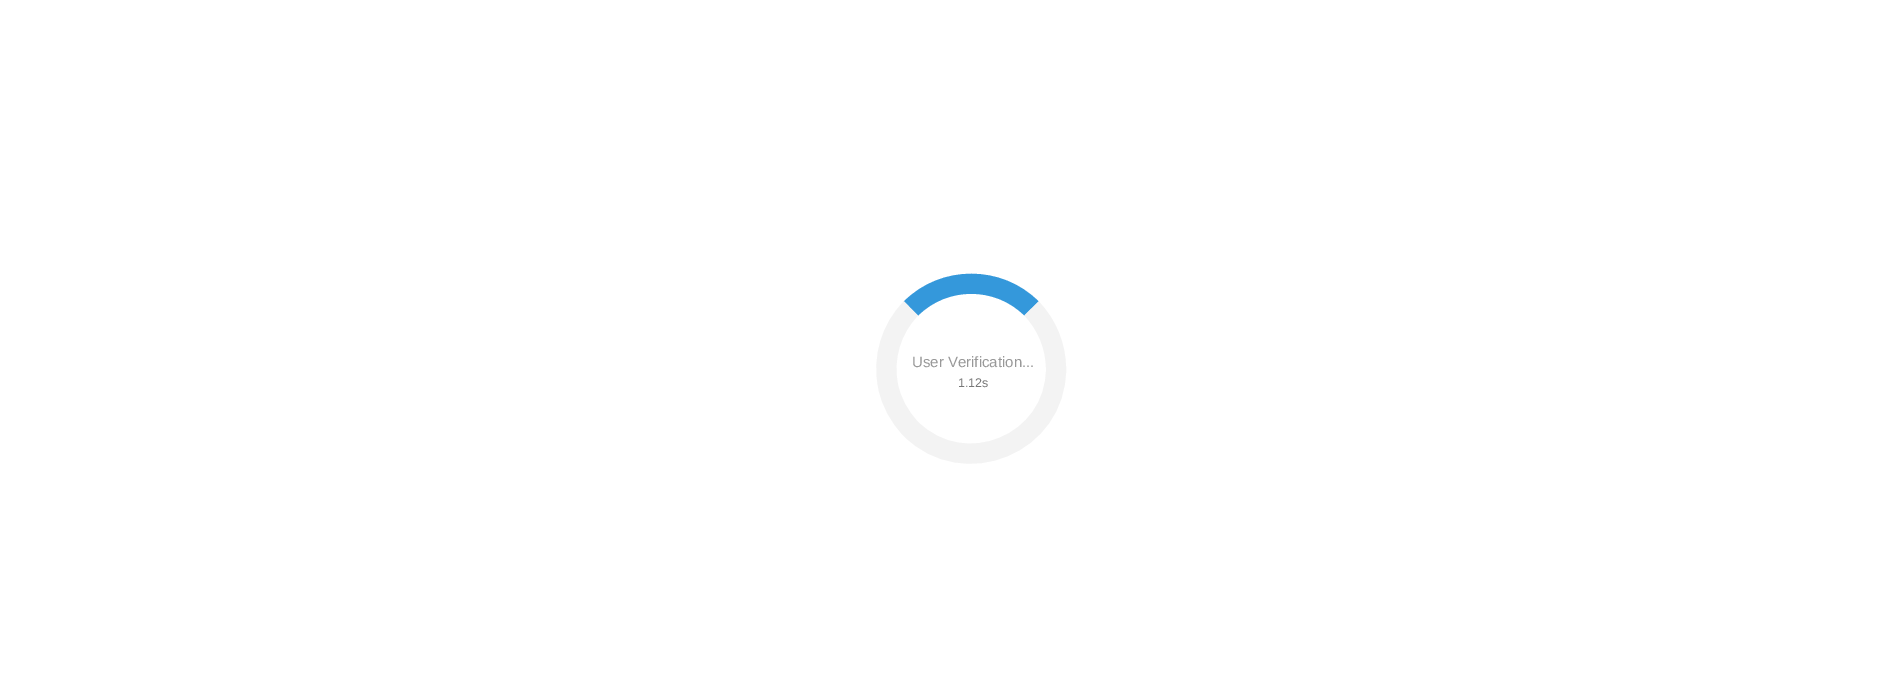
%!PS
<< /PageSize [1901 697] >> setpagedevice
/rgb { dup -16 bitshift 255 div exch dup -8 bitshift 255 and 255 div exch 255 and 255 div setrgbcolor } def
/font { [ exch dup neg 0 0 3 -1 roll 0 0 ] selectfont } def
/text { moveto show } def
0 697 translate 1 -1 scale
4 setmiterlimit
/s1 { /LiberationSans-Regular 15 font 16#999999 rgb } def
/s2 { /LiberationSans-Regular 12.5 font 16#777777 rgb } def
16#FFFFFF rgb
0 0 1901 697 rectfill
16#3498DB rgb
20 setlinewidth
911 308.5 moveto 944 275.5 998.5 275.5 1031.5 308.5 curveto stroke
16#F3F3F3 rgb
1031.5 308.5 moveto 1047 324.5 1056 346.5 1056 369 curveto 1056 444 964.5 482 911 429 curveto 899.5 417 891 402 888 385.5 curveto 882.5 358 891 328.5 911 308.5 curveto stroke
s1
(User Verification...) 912 367 text
s2
(1.12s) 958 387 text
showpage
